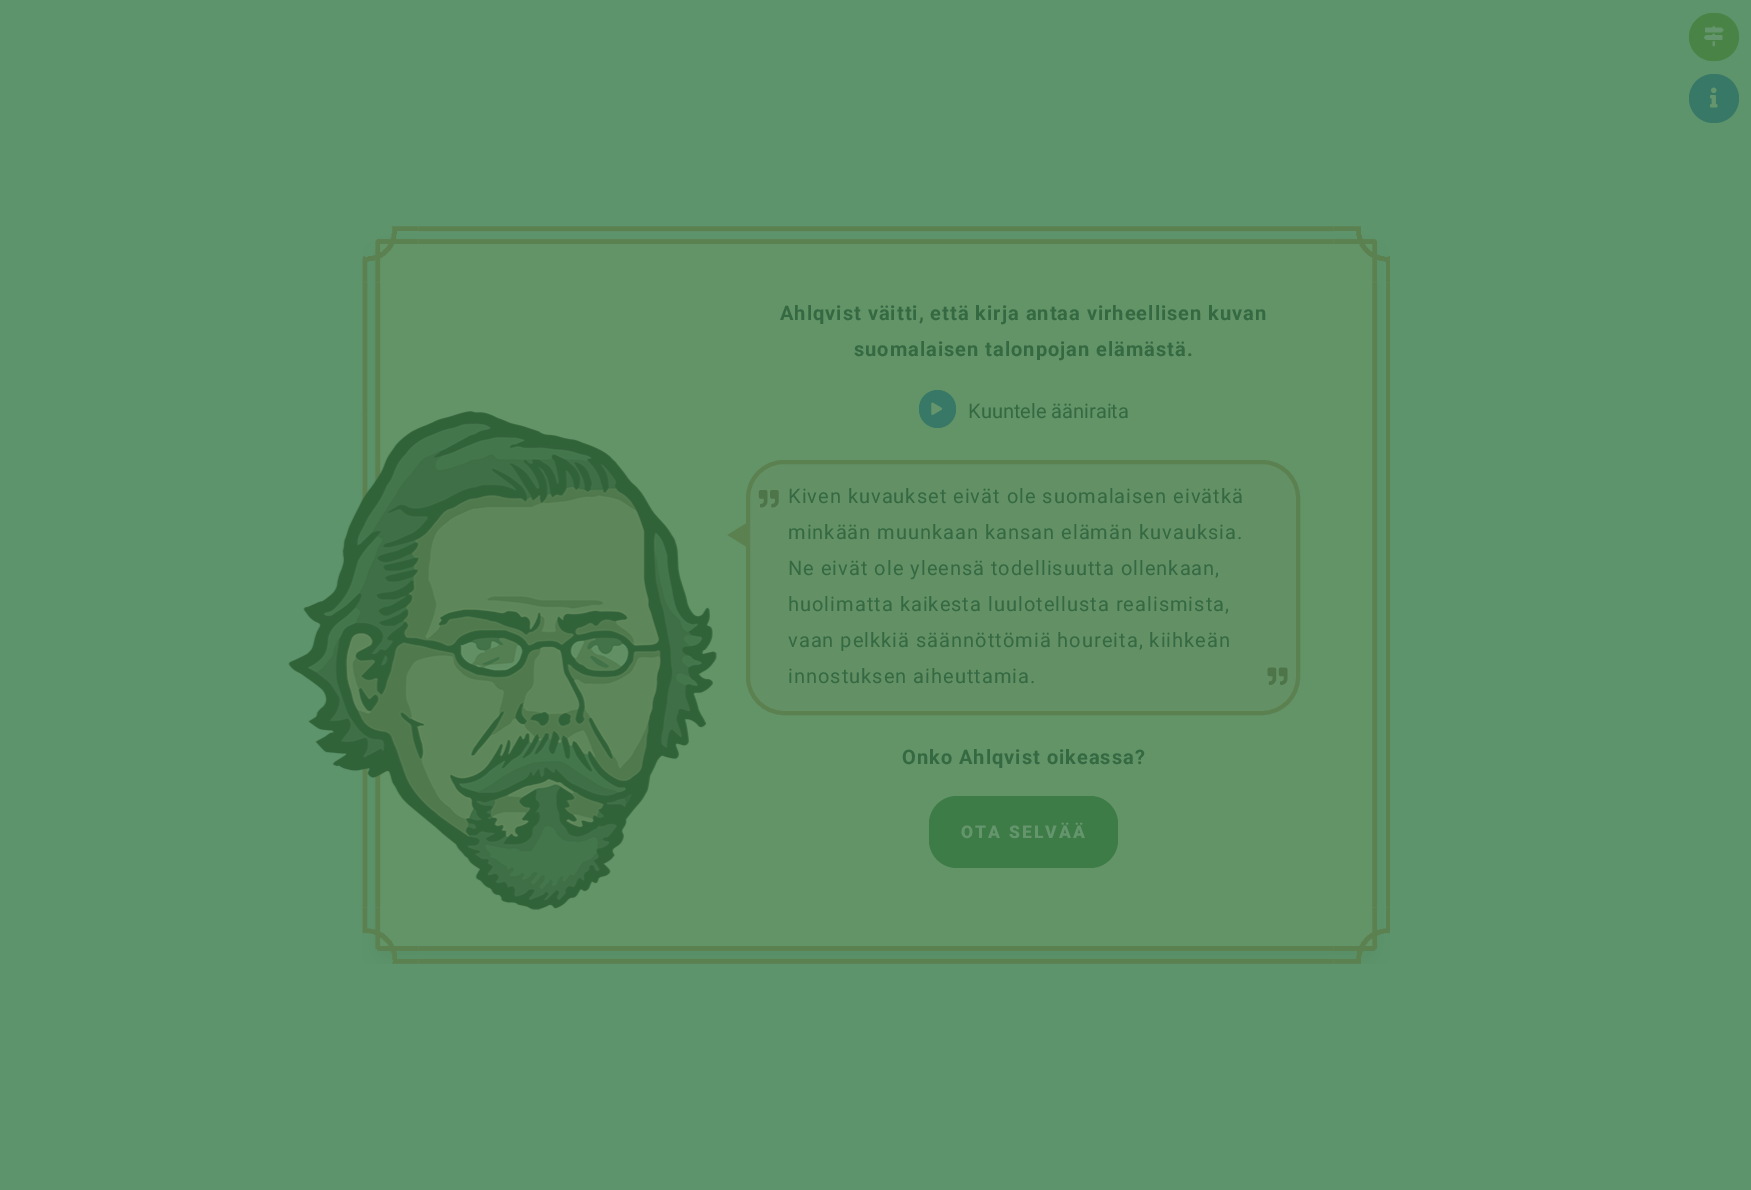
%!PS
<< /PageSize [1751 1190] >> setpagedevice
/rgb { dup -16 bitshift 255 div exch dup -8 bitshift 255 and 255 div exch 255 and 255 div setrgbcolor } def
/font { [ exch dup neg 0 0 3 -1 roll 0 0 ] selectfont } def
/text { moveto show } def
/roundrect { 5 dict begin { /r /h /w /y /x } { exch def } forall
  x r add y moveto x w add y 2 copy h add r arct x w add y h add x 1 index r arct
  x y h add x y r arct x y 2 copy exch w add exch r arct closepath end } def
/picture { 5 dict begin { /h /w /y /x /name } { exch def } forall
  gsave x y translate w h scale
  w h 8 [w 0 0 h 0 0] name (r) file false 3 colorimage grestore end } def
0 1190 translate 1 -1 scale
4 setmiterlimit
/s1 { /Roboto-Regular 20 font 16#346942 rgb } def
16#5E946C rgb
0 0 1751 1190 rectfill
16#498446 rgb
1689 13 50 48 24 roundrect fill
(pic1.raw) 1703 26 21 21 picture
16#387867 rgb
1689 74 50 49 24.5 roundrect fill
(pic2.raw) 1710 87 8 21 picture
16#639467 rgb
376 240 1000 710 rectfill
(pic3.raw) 362 226 1028 738 picture
/Roboto-Bold 20 font
16#346942 rgb
780 320 moveto 1 0 (Ahlqvist väitti, että kirja antaa virheellisen kuvan) ashow
854 356 moveto 1 0 (suomalaisen talonpojan elämästä.) ashow
16#387867 rgb
919 390 37 38 18.5 roundrect fill
(pic4.raw) 931 402 12 13 picture
s1
(Kuuntele ääniraita) 968 418 text
(pic5.raw) 288 411 429 499 picture
16#639165 rgb
748 462 550 251 36 roundrect gsave fill grestore
16#5C8150 rgb
4 setlinewidth
stroke
(pic6.raw) 758 490 21 18 picture
16#346942 rgb
788 503 moveto 1 0 (Kiven kuvaukset eivät ole suomalaisen eivätkä) ashow
788 539 moveto 1 0 (minkään muunkaan kansan elämän kuvauksia.) ashow
788 575 moveto 1 0 (Ne eivät ole yleensä todellisuutta ollenkaan,) ashow
788 611 moveto 1 0 (huolimatta kaikesta luulotellusta realismista,) ashow
788 647 moveto 1 0 (vaan pelkkiä säännöttömiä houreita, kiihkeän) ashow
788 683 moveto 1 0 (innostuksen aiheuttamia.) ashow
16#5C8150 rgb
747.5 522.5 moveto 747.5 547.5 lineto 727.5 535 lineto closepath fill
(pic7.raw) 1267 667 21 18 picture
/Roboto-Bold 20 font
16#346942 rgb
902 764 moveto 1 0 (Onko Ahlqvist oikeassa?) ashow
16#3D7B47 rgb
929 796 189 72 28 roundrect fill
/Roboto-Black 17.5 font
16#64956C rgb
961 838 moveto 2.1 0 (OTA SELVÄÄ) ashow
showpage
